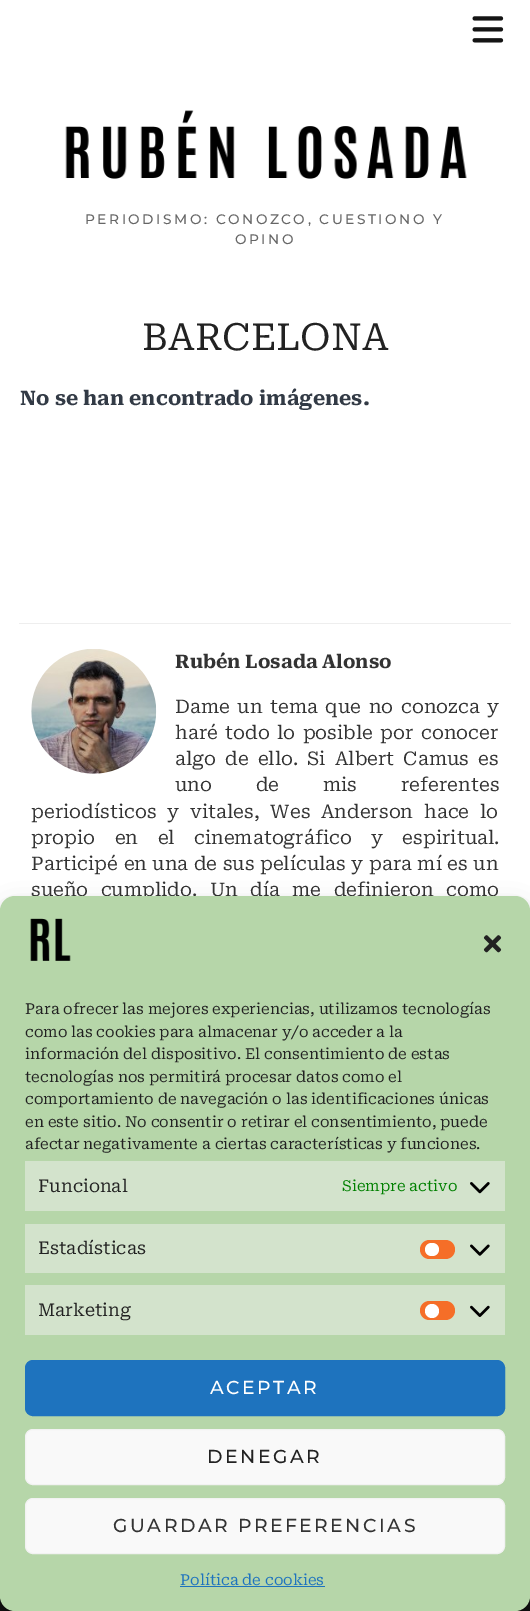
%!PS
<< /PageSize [530 1611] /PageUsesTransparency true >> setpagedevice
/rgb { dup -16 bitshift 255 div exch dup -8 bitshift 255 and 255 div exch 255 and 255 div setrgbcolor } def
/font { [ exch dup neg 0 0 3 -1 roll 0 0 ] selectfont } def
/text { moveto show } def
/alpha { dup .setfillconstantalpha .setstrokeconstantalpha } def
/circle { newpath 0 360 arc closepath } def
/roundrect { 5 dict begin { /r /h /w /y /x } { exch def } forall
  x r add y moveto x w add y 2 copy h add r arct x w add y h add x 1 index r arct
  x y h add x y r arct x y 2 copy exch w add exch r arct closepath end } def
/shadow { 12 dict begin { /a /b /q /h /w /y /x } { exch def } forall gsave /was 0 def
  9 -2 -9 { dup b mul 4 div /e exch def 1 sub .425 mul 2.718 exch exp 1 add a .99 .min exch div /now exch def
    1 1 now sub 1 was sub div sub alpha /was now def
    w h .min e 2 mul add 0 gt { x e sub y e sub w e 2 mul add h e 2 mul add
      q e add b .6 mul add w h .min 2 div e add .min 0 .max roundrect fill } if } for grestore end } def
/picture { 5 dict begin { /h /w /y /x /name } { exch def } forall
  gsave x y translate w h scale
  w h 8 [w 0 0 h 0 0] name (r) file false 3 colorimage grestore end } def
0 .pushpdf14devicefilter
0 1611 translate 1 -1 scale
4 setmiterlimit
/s1 { /RobotoSerif-Regular 37.5 font 16#222222 rgb } def
/s2 { /RobotoSerif-Bold 20 font 16#323A45 rgb } def
/s3 { /RobotoSerif-Bold 18.75 font 16#333333 rgb } def
/s4 { /RobotoSerif-Regular 15 font 16#222222 rgb } def
/s5 { /RobotoSerif-Regular 17.5 font 16#222222 rgb } def
/s6 { /RobotoSerif-Regular 15 font 16#008000 rgb } def
/s7 { /RobotoSerif-Regular 15 font 16#1E73BE rgb } def
16#FFFFFF rgb
0 0 530 1611 rectfill
(pic1.raw) 472 16 32 27 picture
(pic2.raw) 65 110 402 69 picture
/Montserrat-Thin 13.75 font
16#666666 rgb
85 224 moveto 2.5 0 (PERIODISMO: CONOZCO, CUESTIONO Y) ashow
235 244 moveto 2.5 0 (OPINO) ashow
s1
(BARCELONA) 142 350 text
s2
(No se han encontrado imágenes.) 20 405 text
16#EEEEEE rgb
19 623 492 1 rectfill
(pic3.raw) 31 649 126 125 picture
s3
(Rubén Losada Alonso) 175 668 text
/RobotoSerif-Regular 18.75 font
175 713 moveto 2.75 0 32 (Dame un tema que no conozca y) widthshow
175 739 moveto 2.5 0 32 (haré todo lo posible por conocer) widthshow
175 765 moveto 4.25 0 32 (algo de ello. Si Albert Camus es) widthshow
175 791 moveto 39 0 32 (uno de mis referentes) widthshow
31 818 moveto 6 0 32 (periodísticos y vitales, Wes Anderson hace lo) widthshow
31 844 moveto 14.5 0 32 (propio en el cinematográfico y espiritual.) widthshow
31 870 moveto 0.6 0 32 (Participé en una de sus películas y para mí es un) widthshow
31 896 moveto 7.5 0 32 (sueño cumplido. Un día me definieron como) widthshow
16#111111 rgb
0 1596 530 15 rectfill
16#000000 rgb
0 904 530 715 15 4 0.23 shadow
0 909 530 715 15 12.5 0.19 shadow
16#B6D6A9 rgb
0 896 530 715 15 roundrect fill
(pic4.raw) 30 918 41 43 picture
(pic5.raw) 483 935 19 18 picture
s4
(Para ofrecer las mejores experiencias, utilizamos tecnologías) 25 1014 text
(como las cookies para almacenar y/o acceder a la) 25 1037 text
(información del dispositivo. El consentimiento de estas) 25 1059 text
(tecnologías nos permitirá procesar datos como el) 25 1082 text
(comportamiento de navegación o las identificaciones únicas) 25 1104 text
(en este sitio. No consentir o retirar el consentimiento, puede) 25 1127 text
(afectar negativamente a ciertas características y funciones.) 25 1149 text
16#D3E3CC rgb
25 1161 480 50 rectfill
s5
(Funcional) 38 1192 text
s6
(Siempre activo) 342 1191 text
(pic6.raw) 470 1182 20 12 picture
16#D3E3CC rgb
25 1224 480 49 rectfill
s5
(Estadísticas) 38 1254 text
16#F56E28 rgb
420 1240 35 19 9.5 roundrect fill
16#FFFFFF rgb
425 1243 14 13 6.5 roundrect fill
(pic7.raw) 470 1244 20 12 picture
16#D3E3CC rgb
25 1285 480 50 rectfill
s5
(Marketing) 38 1316 text
16#F56E28 rgb
420 1301 35 19 9.5 roundrect fill
16#FFFFFF rgb
432 1311 7 circle fill
(pic8.raw) 470 1305 20 12 picture
16#1E73BE rgb
25.5 1360.5 479 55 7.5 roundrect gsave fill grestore
stroke
/Montserrat-Thin 18.75 font
16#FFFFFF rgb
210 1394 moveto 2.5 0 (ACEPTAR) ashow
16#F9F9F9 rgb
25.5 1429.5 479 55 7.5 roundrect gsave fill grestore
16#F2F2F2 rgb
stroke
16#222222 rgb
207 1463 moveto 2.5 0 (DENEGAR) ashow
16#F9F9F9 rgb
25.5 1498.5 479 55 7.5 roundrect gsave fill grestore
16#F2F2F2 rgb
stroke
16#333333 rgb
113 1532 moveto 2.5 0 (GUARDAR PREFERENCIAS) ashow
s7
(Política de cookies) 180 1585 text
180 1586 145 1 rectfill
.poppdf14devicefilter showpage
